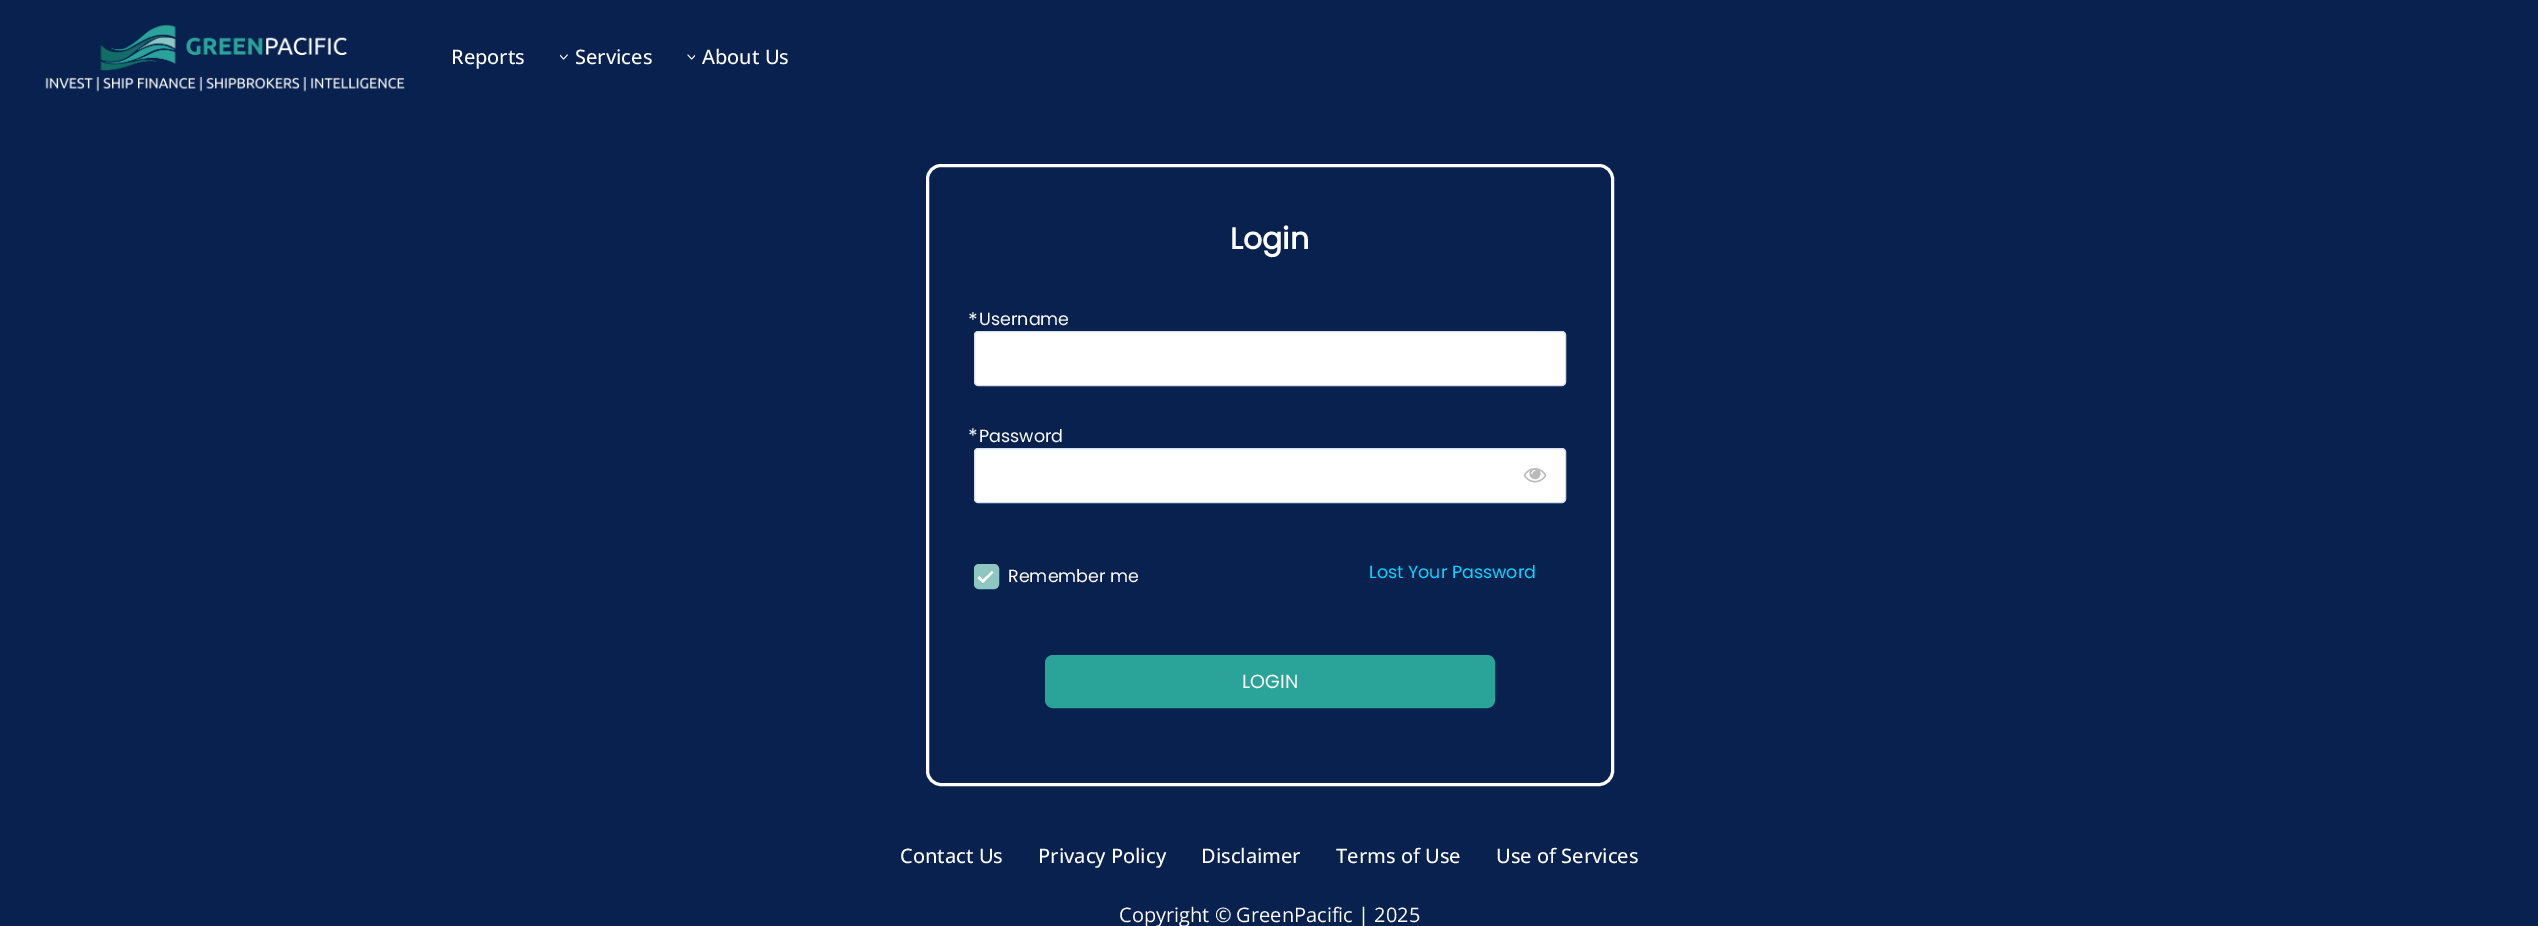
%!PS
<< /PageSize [2538 926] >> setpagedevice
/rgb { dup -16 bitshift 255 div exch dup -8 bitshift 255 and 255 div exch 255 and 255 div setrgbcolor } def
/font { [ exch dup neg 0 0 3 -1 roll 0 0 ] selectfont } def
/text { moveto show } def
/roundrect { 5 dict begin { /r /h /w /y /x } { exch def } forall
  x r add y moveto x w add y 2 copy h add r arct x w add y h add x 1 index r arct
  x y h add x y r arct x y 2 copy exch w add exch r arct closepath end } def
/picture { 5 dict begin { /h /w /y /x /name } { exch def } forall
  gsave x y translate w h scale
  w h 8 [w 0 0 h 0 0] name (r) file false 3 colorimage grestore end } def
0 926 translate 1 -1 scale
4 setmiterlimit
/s1 { /OpenSans-Medium 20 font 16#FFFFFF rgb } def
/s2 { /Poppins-Bold 30 font 16#FFFFFF rgb } def
/s3 { /Poppins-Regular 20 font 16#FFFFFF rgb } def
/s4 { /Poppins-Regular 17.5 font 16#FFFFFF rgb } def
/s5 { /Poppins-Regular 19 font 16#FFFFFF rgb } def
/s6 { /Poppins-Regular 17.5 font 16#06D5FF rgb } def
/s7 { /OpenSans-Regular 20 font 16#FFFFFF rgb } def
16#08214E rgb
0 0 2538 926 rectfill
(pic1.raw) 45 24 360 68 picture
s1
(Reports) 451 64 text
(pic2.raw) 560 54 8 6 picture
(Services) 575 64 text
(pic3.raw) 687 54 8 6 picture
(About Us) 702 64 text
3 setlinewidth
927.5 165.5 685 619 13.5 roundrect stroke
s2
(Login) 1230 249 text
s3
(*) 968 327 text
s4
(Username) 979 325 text
974.5 331.5 591 54 3.5 roundrect gsave fill grestore
16#D3DEF0 rgb
1 setlinewidth
stroke
s3
(*) 968 443 text
s4
(Password) 979 442 text
974.5 448.5 591 54 3.5 roundrect gsave fill grestore
16#D3DEF0 rgb
stroke
(pic4.raw) 1523 468 24 15 picture
16#8EC6C1 rgb
975.5 565.5 22 22 3.5 roundrect gsave fill grestore
3 setlinewidth
stroke
16#FFFFFF rgb
992 571 moveto 993.5 572.5 lineto 983 583 lineto 981 581.5 lineto closepath fill
979.5 576 moveto 984.5 581.5 lineto 983 583 lineto 977.5 578 lineto closepath fill
(Remember me) 1008 582 text
16#2AA399 rgb
1045.5 655.5 449 52 7.5 roundrect gsave fill grestore
1 setlinewidth
stroke
s5
(LOGIN) 1242 688 text
s6
(Lost Your Password) 1369 578 text
s1
(Contact Us) 900 863 text
(Privacy Policy) 1038 863 text
(Disclaimer) 1201 863 text
(Terms of Use) 1336 863 text
(Use of Services) 1496 863 text
s7
(Copyright © GreenPacific | 2025) 1119 922 text
showpage
